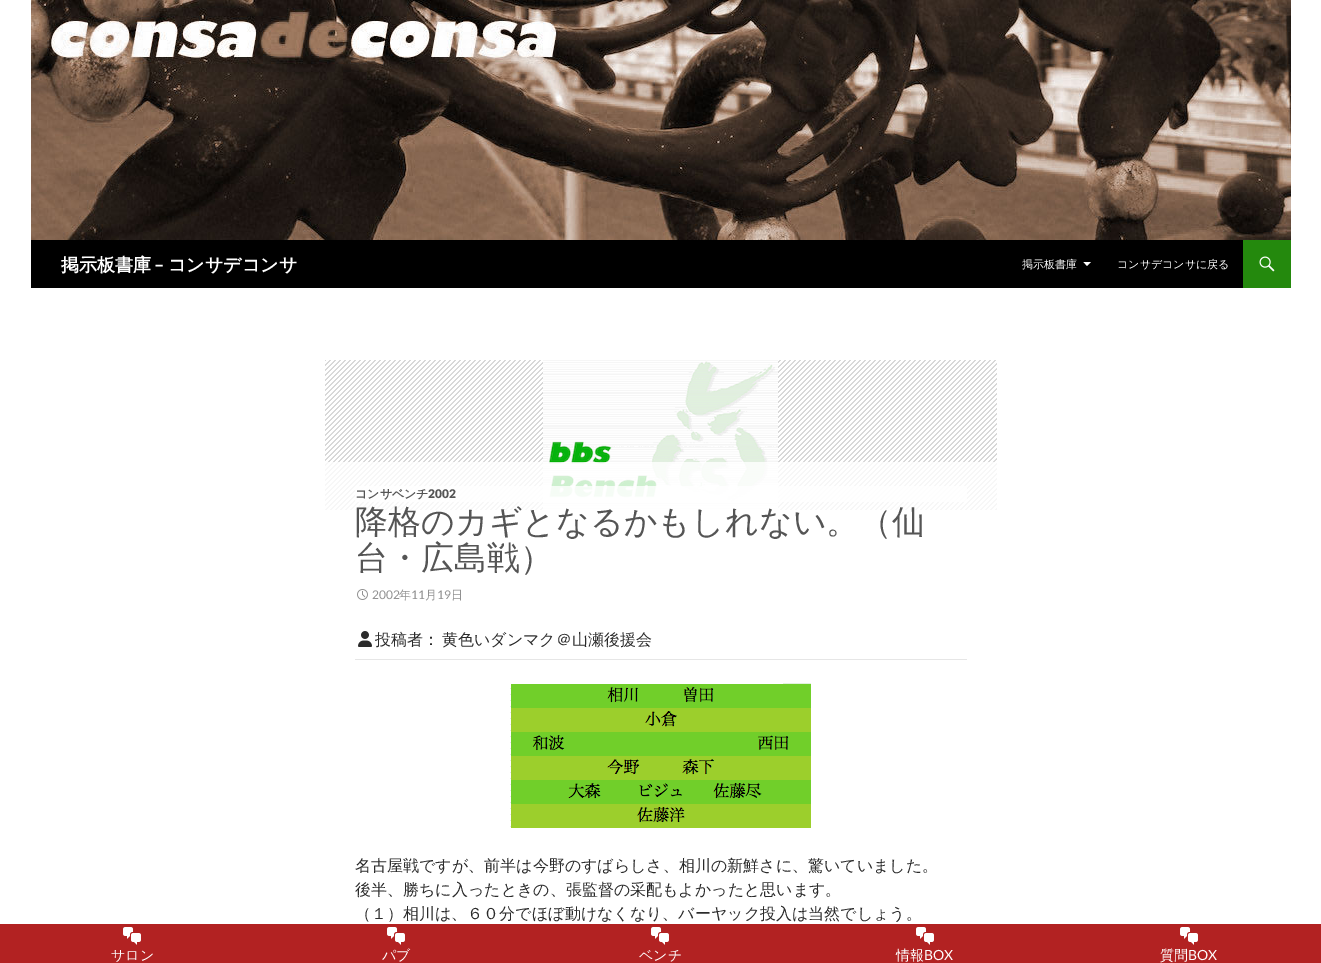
%!PS
<< /PageSize [1321 963] /PageUsesTransparency true >> setpagedevice
/rgb { dup -16 bitshift 255 div exch dup -8 bitshift 255 and 255 div exch 255 and 255 div setrgbcolor } def
/font { [ exch dup neg 0 0 3 -1 roll 0 0 ] selectfont } def
/text { moveto show } def
/alpha { dup .setfillconstantalpha .setstrokeconstantalpha } def
/picture { 5 dict begin { /h /w /y /x /name } { exch def } forall
  gsave x y translate w h scale
  w h 8 [w 0 0 h 0 0] name (r) file false 3 colorimage grestore end } def
0 .pushpdf14devicefilter
0 963 translate 1 -1 scale
4 setmiterlimit
/s1 { /WenQuanYiZenHei-Bold 18 font 16#FFFFFF rgb } def
/s2 { /Lato-Bold 18 font 16#FFFFFF rgb } def
/s3 { /WenQuanYiZenHei-Medium 11 font 16#FFFFFF rgb } def
/s4 { /WenQuanYiZenHei-Bold 12 font 16#555555 rgb } def
/s5 { /Lato-Black 12 font 16#555555 rgb } def
/s6 { /WenQuanYiZenHei-Medium 33 font 16#555555 rgb } def
/s7 { /Lato-Regular 12 font 16#919191 rgb } def
/s8 { /WenQuanYiZenHei-Medium 12 font 16#919191 rgb } def
/s9 { /WenQuanYiZenHei-Medium 16 font 16#2B2B2B rgb } def
/s10 { /WenQuanYiZenHei-Medium 14 font 16#FFFFFF rgb } def
/s11 { /Lato-Regular 14 font 16#FFFFFF rgb } def
16#FFFFFF rgb
0 0 1321 963 rectfill
(pic1.raw) 31 0 1260 240 picture
16#000000 rgb
31 240 1212 48 rectfill
s1
(掲示板書庫) 61 271 text
s2
(–) 154 271 text
s1
(コンサデコンサ) 168 271 text
s3
(掲示板書庫) 1022 268 text
1083.5 262 moveto 1087 266 lineto 1091 262 lineto closepath fill
(コンサデコンサに戻る) 1117 268 text
16#24890D rgb
1243 240 48 48 rectfill
(pic2.raw) 1259 256 16 16 picture
16#B2B2B2 rgb
325 360 672 150 rectfill
(pic3.raw) 325 360 672 150 picture
(pic4.raw) 543 360 235 150 picture
0.8 alpha
16#FFFFFF rgb
325 462 672 48 rectfill
355 486 612 16 rectfill
1 alpha
s4
(コンサベンチ) 355 498 text
s5
(2002) 428 498 text
s6
(降格のカギとなるかもしれない。（仙) 355 533 text
(台・広島戦）) 355 569 text
(pic5.raw) 357 589 11 11 picture
s7
(2002) 372 599 text
s8
(年) 399 599 text
s7
(11) 411 599 text
s8
(月) 425 599 text
s7
(19) 437 599 text
s8
(日) 451 599 text
(pic6.raw) 358 631 14 16 picture
/WenQuanYiZenHei-Medium 16 font
16#2B2B2B rgb
375 645 moveto -2 0 32 (投稿者： 黄色いダンマク＠山瀬後援会) widthshow
16#E6E6E6 rgb
355 659 612 1 rectfill
(pic7.raw) 510 683 301 145 picture
s9
(名古屋戦ですが、前半は今野のすばらしさ、相川の新鮮さに、驚いていました。) 355 871 text
(後半、勝ちに入ったときの、張監督の采配もよかったと思います。) 355 895 text
(（１）相川は、６０分でほぼ動けなくなり、バーヤック投入は当然でしょう。) 355 919 text
16#B22222 rgb
0 924 1321 39 rectfill
(pic8.raw) 123 927 18 18 picture
s10
(サロン) 111 960 text
(pic8.raw) 387 927 18 18 picture
(パブ) 382 960 text
(pic8.raw) 651 927 18 18 picture
(ベンチ) 639 960 text
(pic8.raw) 916 927 18 18 picture
(情報) 896 960 text
s11
(BOX) 924 960 text
(pic8.raw) 1180 927 18 18 picture
s10
(質問) 1160 960 text
s11
(BOX) 1188 960 text
.poppdf14devicefilter showpage
